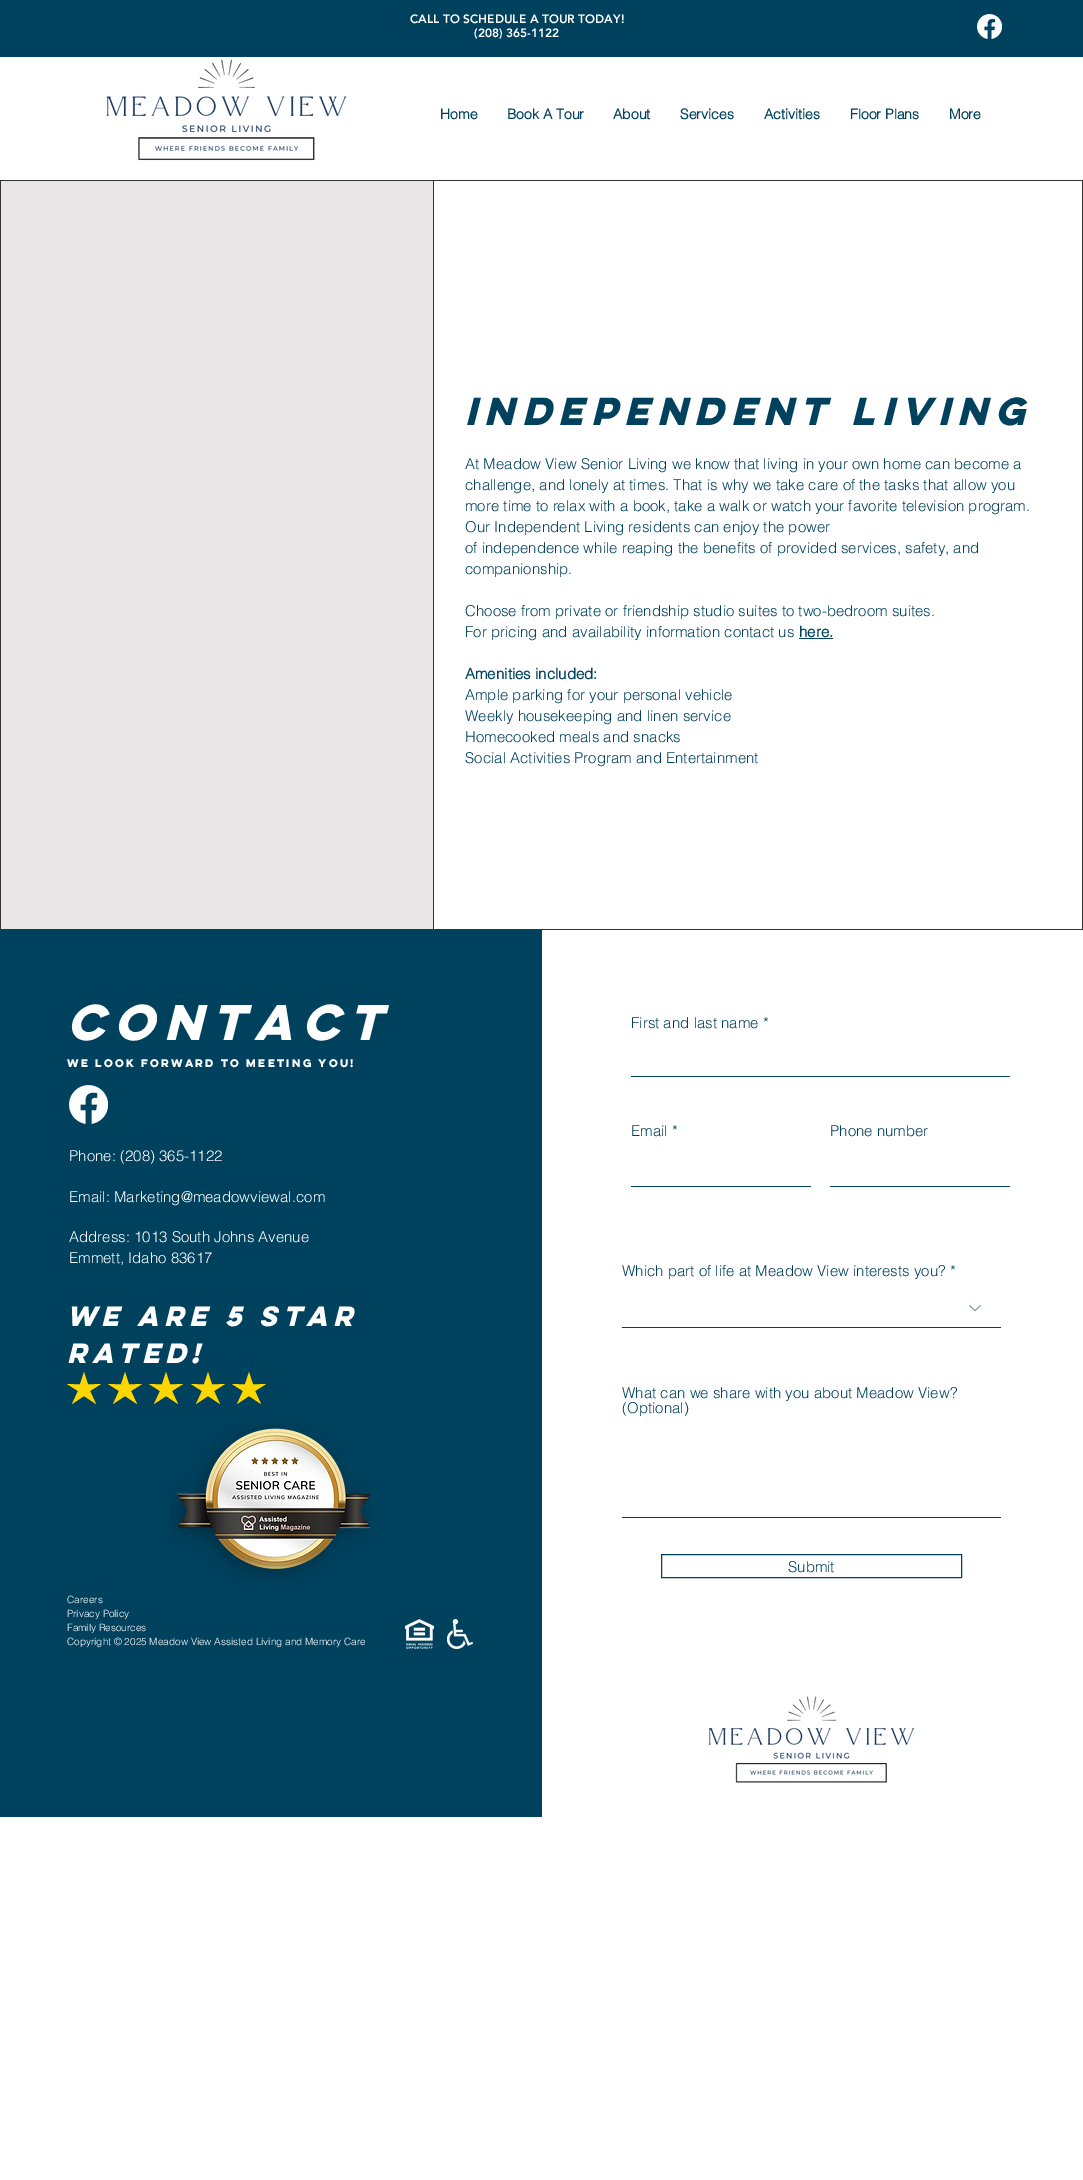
%!PS
<< /PageSize [1083 2180] >> setpagedevice
/rgb { dup -16 bitshift 255 div exch dup -8 bitshift 255 and 255 div exch 255 and 255 div setrgbcolor } def
/font { [ exch dup neg 0 0 3 -1 roll 0 0 ] selectfont } def
/text { moveto show } def
/picture { 5 dict begin { /h /w /y /x /name } { exch def } forall
  gsave x y translate w h scale
  w h 8 [w 0 0 h 0 0] name (r) file false 3 colorimage grestore end } def
0 2180 translate 1 -1 scale
4 setmiterlimit
/s1 { /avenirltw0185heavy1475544-Black 12 font 16#FFFFFF rgb } def
/s2 { /helvetica-Bold 14 font 16#00415E rgb } def
/s3 { /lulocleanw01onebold-BoldItalic 35 font 16#00415E rgb } def
/s4 { /helvetica-Light 15 font 16#00415E rgb } def
/s5 { /helvetica-Bold 15 font 16#00415E rgb } def
/s6 { /lulocleanw01onebold-BoldItalic 45 font 16#FFFFFF rgb } def
/s7 { /lulocleanw01onebold-Bold 10 font 16#FFFFFF rgb } def
/s8 { /helvetica-Light 15 font 16#FFFFFF rgb } def
/s9 { /lulocleanw01onebold-BoldItalic 25 font 16#FFFFFF rgb } def
/s10 { /helvetica-Light 10 font 16#FFFFFF rgb } def
16#FFFFFF rgb
0 0 1083 2180 rectfill
16#00415E rgb
0 0 1083 57 rectfill
s1
(CALL TO SCHEDULE A TOUR TODAY!) 410 23 text
(\(208\) 365-1122) 474 37 text
(pic1.raw) 977 14 25 25 picture
(pic2.raw) 106 59 241 102 picture
s2
(Home) 440 119 text
(Book A Tour) 507 119 text
(About) 613 119 text
(Services) 680 119 text
(Activities) 764 119 text
(Floor Plans) 850 119 text
(More) 949 119 text
16#333333 rgb
0 180 1083 750 rectfill
16#E8E6E6 rgb
1 181 432 748 rectfill
16#FFFFFF rgb
434 181 648 748 rectfill
s3
(Independent Living) 465 425 text
s4
(At Meadow View Senior Living we know that living in your own home can become a) 465 469 text
(challenge, and lonely at times. That is why we take care of the tasks that allow you) 465 490 text
(more time to relax with a book, take a walk or watch your favorite television program.) 465 511 text
(Our Independent Living residents can enjoy the power) 465 532 text
(of independence while reaping the benefits of provided services, safety, and) 465 553 text
(companionship.) 465 574 text
(Choose from private or friendship studio suites to two-bedroom suites.) 465 616 text
(For pricing and availability information contact us) 465 637 text
s5
(here.) 799 637 text
799 638 34 1 rectfill
(Amenities included:) 465 679 text
s4
(Ample parking for your personal vehicle) 465 700 text
(Weekly housekeeping and linen service) 465 721 text
(Homecooked meals and snacks) 465 742 text
(Social Activities Program and Entertainment) 465 763 text
0 930 542 887 rectfill
s6
(CONTACT) 67 1040 text
s7
(We look forward to meeting you!) 67 1067 text
(pic3.raw) 69 1085 39 39 picture
s8
(Phone: \(208\) 365-1122) 69 1161 text
(Email: Marketing@meadowviewal.com) 69 1202 text
(Address: 1013 South Johns Avenue) 69 1242 text
(Emmett, Idaho 83617) 69 1263 text
s9
(WE ARE 5 STAR) 67 1326 text
(RATED!) 67 1363 text
16#FFD700 rgb
84 1372 moveto 80 1384.5 lineto 67 1384 lineto 78 1391 lineto 72 1404 lineto 84 1396 lineto 96 1404 lineto 90 1391 lineto 101 1384 lineto 88 1384.5 lineto closepath fill
125 1372 moveto 121 1384.5 lineto 108 1384 lineto 119 1391 lineto 113 1404 lineto 125 1396 lineto 137 1404 lineto 131 1391 lineto 142 1384 lineto 129 1384.5 lineto closepath fill
166 1372 moveto 162 1384.5 lineto 149 1384 lineto 160 1391 lineto 154 1404 lineto 166 1396 lineto 178 1404 lineto 172 1391 lineto 183 1384 lineto 170 1384.5 lineto closepath fill
208 1372 moveto 204 1384.5 lineto 191 1384 lineto 202 1391 lineto 196 1404 lineto 208 1396 lineto 220 1404 lineto 214 1391 lineto 225 1384 lineto 212 1384.5 lineto closepath fill
249 1372 moveto 245 1384.5 lineto 232 1384 lineto 243 1391 lineto 237 1404 lineto 249 1396 lineto 261 1404 lineto 255 1391 lineto 266 1384 lineto 253 1384.5 lineto closepath fill
(pic4.raw) 169 1422 202 160 picture
s10
(Careers) 67 1603 text
(Privacy Policy) 67 1617 text
(Family Resources) 67 1631 text
(Copyright © 2025 Meadow View Assisted Living and Memory Care) 67 1645 text
(pic5.raw) 405 1619 29 30 picture
(pic6.raw) 447 1619 26 30 picture
s4
(First and last name *) 631 1028 text
631 1076 379 1 rectfill
(Email *) 631 1136 text
631 1186 180 1 rectfill
(Phone number) 830 1136 text
830 1186 180 1 rectfill
(Which part of life at Meadow View interests you? *) 622 1276 text
(pic7.raw) 969 1305 12 6 picture
622 1327 379 1 rectfill
(What can we share with you about Meadow View?) 622 1398 text
(\(Optional\)) 622 1413 text
622 1517 379 1 rectfill
661.5 1554.5 300 23 rectstroke
(Submit) 788 1572 text
(pic8.raw) 708 1696 207 87 picture
showpage
